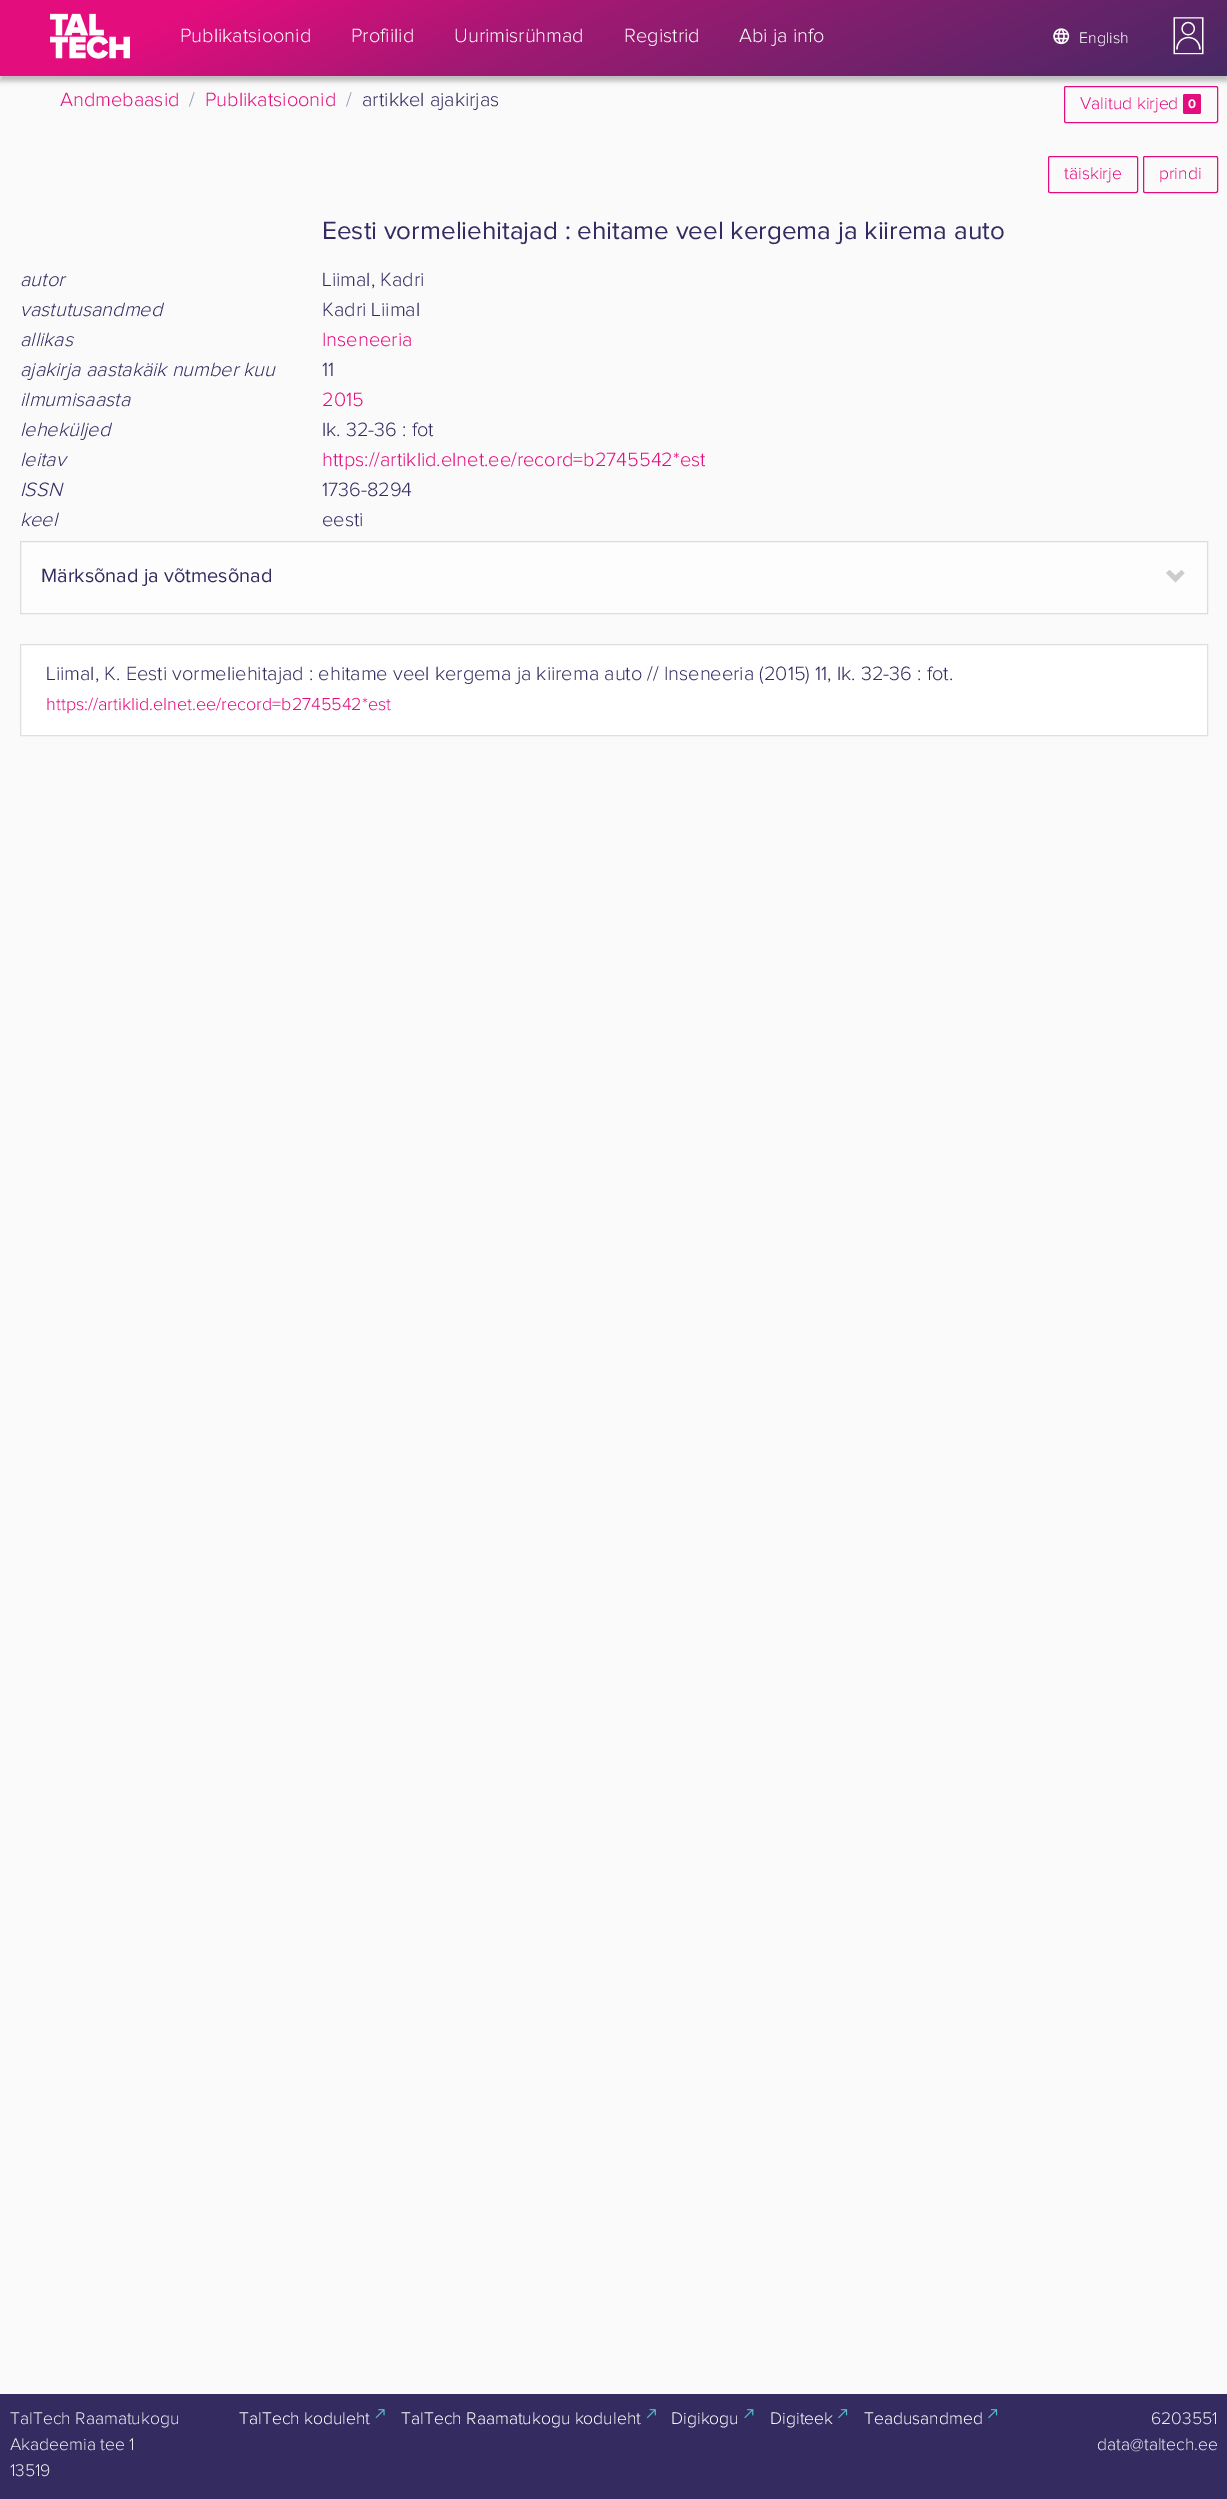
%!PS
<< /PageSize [1227 2499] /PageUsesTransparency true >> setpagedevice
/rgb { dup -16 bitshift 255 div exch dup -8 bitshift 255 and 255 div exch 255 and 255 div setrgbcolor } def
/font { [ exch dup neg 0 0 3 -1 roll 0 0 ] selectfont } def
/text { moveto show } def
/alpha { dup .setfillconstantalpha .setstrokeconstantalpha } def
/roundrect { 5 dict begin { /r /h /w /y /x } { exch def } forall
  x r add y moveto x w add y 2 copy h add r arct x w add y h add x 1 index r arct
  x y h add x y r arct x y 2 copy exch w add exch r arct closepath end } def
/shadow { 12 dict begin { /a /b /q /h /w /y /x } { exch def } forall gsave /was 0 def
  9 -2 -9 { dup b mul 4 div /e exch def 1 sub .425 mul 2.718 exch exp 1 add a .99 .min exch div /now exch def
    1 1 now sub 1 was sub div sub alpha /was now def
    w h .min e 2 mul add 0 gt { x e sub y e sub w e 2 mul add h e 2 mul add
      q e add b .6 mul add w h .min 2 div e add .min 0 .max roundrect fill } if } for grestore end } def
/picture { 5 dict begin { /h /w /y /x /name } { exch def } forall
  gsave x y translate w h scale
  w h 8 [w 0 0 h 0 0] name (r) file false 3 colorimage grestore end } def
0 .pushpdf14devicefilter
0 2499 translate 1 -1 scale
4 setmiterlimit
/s1 { /ProximaNova-Light 20 font 16#FFFFFF rgb } def
/s2 { /ProximaNova-Light 16 font 16#FFFFFF rgb } def
/s3 { /ProximaNova-Light 20 font 16#E40D7E rgb } def
/s4 { /ProximaNova-Light 20 font 16#9092AD rgb } def
/s5 { /ProximaNova-Light 20 font 16#342C61 rgb } def
/s6 { /ProximaNova-Light 17.5 font 16#E40D7E rgb } def
/s7 { /ProximaNova-Bold 13 font 16#FFFFFF rgb } def
/s8 { /ProximaNova-Regular 26 font 16#342C61 rgb } def
/s9 { /ProximaNova-LightItalic 20 font 16#342C61 rgb } def
/s10 { /ProximaNova-Regular 20 font 16#342C61 rgb } def
/s11 { /ProximaNova-Light 18 font 16#E40D7E rgb } def
/s12 { /ProximaNova-Light 17.5 font 16#ECECF1 rgb } def
/s13 { /ProximaNova-Light 17.5 font 16#FFFFFF rgb } def
16#FBFAFB rgb
0 0 1227 2499 rectfill
16#000000 rgb
0 1 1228 80 0 2.5 0.25 shadow
gsave 0 0 moveto 1227 0 lineto 1227 76 lineto 0 76 lineto closepath clip newpath
<< /ShadingType 2 /ColorSpace /DeviceRGB /Coords [489 -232 771 374] /Extend [true true] /Function << /FunctionType 3 /Domain [0 1] /Functions [<< /FunctionType 2 /Domain [0 1] /C0 [0.894 0.051 0.494] /C1 [0.894 0.051 0.494] /N 1 >> << /FunctionType 2 /Domain [0 1] /C0 [0.894 0.051 0.494] /C1 [0.631 0.098 0.451] /N 1 >> << /FunctionType 2 /Domain [0 1] /C0 [0.631 0.098 0.451] /C1 [0.306 0.153 0.396] /N 1 >> << /FunctionType 2 /Domain [0 1] /C0 [0.306 0.153 0.396] /C1 [0.204 0.173 0.38] /N 1 >>] /Bounds [0.14 0.39 0.84] /Encode [0 1 0 1 0 1 0 1] >> >> shfill grestore
(pic1.raw) 50 13 80 46 picture
s1
(Publikatsioonid) 180 42 text
(Profiilid) 351 42 text
(Uurimisrühmad) 454 42 text
(Registrid) 624 42 text
(Abi ja info) 739 42 text
(pic2.raw) 1053 28 17 17 picture
s2
(English) 1079 43 text
(pic3.raw) 1173 17 31 38 picture
s3
(Andmebaasid) 60 106 text
s4
(/) 189 106 text
s3
(Publikatsioonid) 205 106 text
s4
(/) 346 106 text
s5
(artikkel ajakirjas) 362 106 text
16#E40D7E rgb
1064.5 86.5 153 36 1.5 roundrect stroke
s6
(Valitud kirjed) 1080 109 text
1183 94 18 20 2 roundrect fill
s7
(0) 1188 108 text
16#E40D7E rgb
1048.5 156.5 89 36 1.5 roundrect stroke
s6
(täiskirje) 1064 179 text
1143.5 156.5 74 36 1.5 roundrect stroke
(prindi) 1159 179 text
s8
(Eesti vormeliehitajad : ehitame veel kergema ja kiirema auto) 322 239 text
s9
(autor) 20 286 text
s5
(Liimal, Kadri) 322 286 text
s9
(vastutusandmed) 20 316 text
s5
(Kadri Liimal) 322 316 text
s9
(allikas) 20 346 text
s3
(Inseneeria) 322 346 text
s9
(ajakirja aastakäik number kuu) 20 376 text
s5
(11) 322 376 text
s9
(ilmumisaasta) 20 406 text
s3
(2015) 322 406 text
s9
(leheküljed) 20 436 text
s5
(lk. 32-36 : fot) 322 436 text
s9
(leitav) 20 466 text
s3
(https://artiklid.elnet.ee/record=b2745542*est) 322 466 text
s9
(ISSN) 20 496 text
s5
(1736-8294) 322 496 text
s9
(keel) 20 526 text
s5
(eesti) 322 526 text
16#FDFDFD rgb
20.5 541.5 moveto 1207.5 541.5 lineto 1207.5 613.5 lineto 20.5 613.5 lineto closepath gsave fill grestore
16#DDDDDD rgb
stroke
s10
(Märksõnad ja võtmesõnad) 41 582 text
16#CCCCCC rgb
1184.5 573 moveto 1175.5 582.5 lineto 1166 573 lineto 1169.5 570 lineto 1175.5 575.5 lineto 1181.5 570 lineto closepath fill
16#FFFFFF rgb
20.5 644.5 moveto 1207.5 644.5 lineto 1207.5 735.5 lineto 20.5 735.5 lineto closepath gsave fill grestore
16#DFDFDF rgb
stroke
s5
(Liimal, K. Eesti vormeliehitajad : ehitame veel kergema ja kiirema auto // Inseneeria \(2015\) 11, lk. 32-36 : fot.) 46 680 text
s11
(https://artiklid.elnet.ee/record=b2745542*est) 46 710 text
16#342C61 rgb
0 2394 1227 105 rectfill
s12
(TalTech Raamatukogu) 10 2424 text
(Akadeemia tee 1) 10 2450 text
(13519) 10 2476 text
s13
(TalTech koduleht) 239 2424 text
(pic4.raw) 375 2409 10 10 picture
(TalTech Raamatukogu koduleht) 401 2424 text
(pic5.raw) 646 2409 10 10 picture
(Digikogu) 671 2424 text
(pic6.raw) 744 2409 10 10 picture
(Digiteek) 770 2424 text
(pic7.raw) 838 2409 10 10 picture
(Teadusandmed) 864 2424 text
(pic7.raw) 988 2409 10 10 picture
s12
(6203551) 1151 2424 text
(data@taltech.ee) 1097 2450 text
.poppdf14devicefilter showpage
